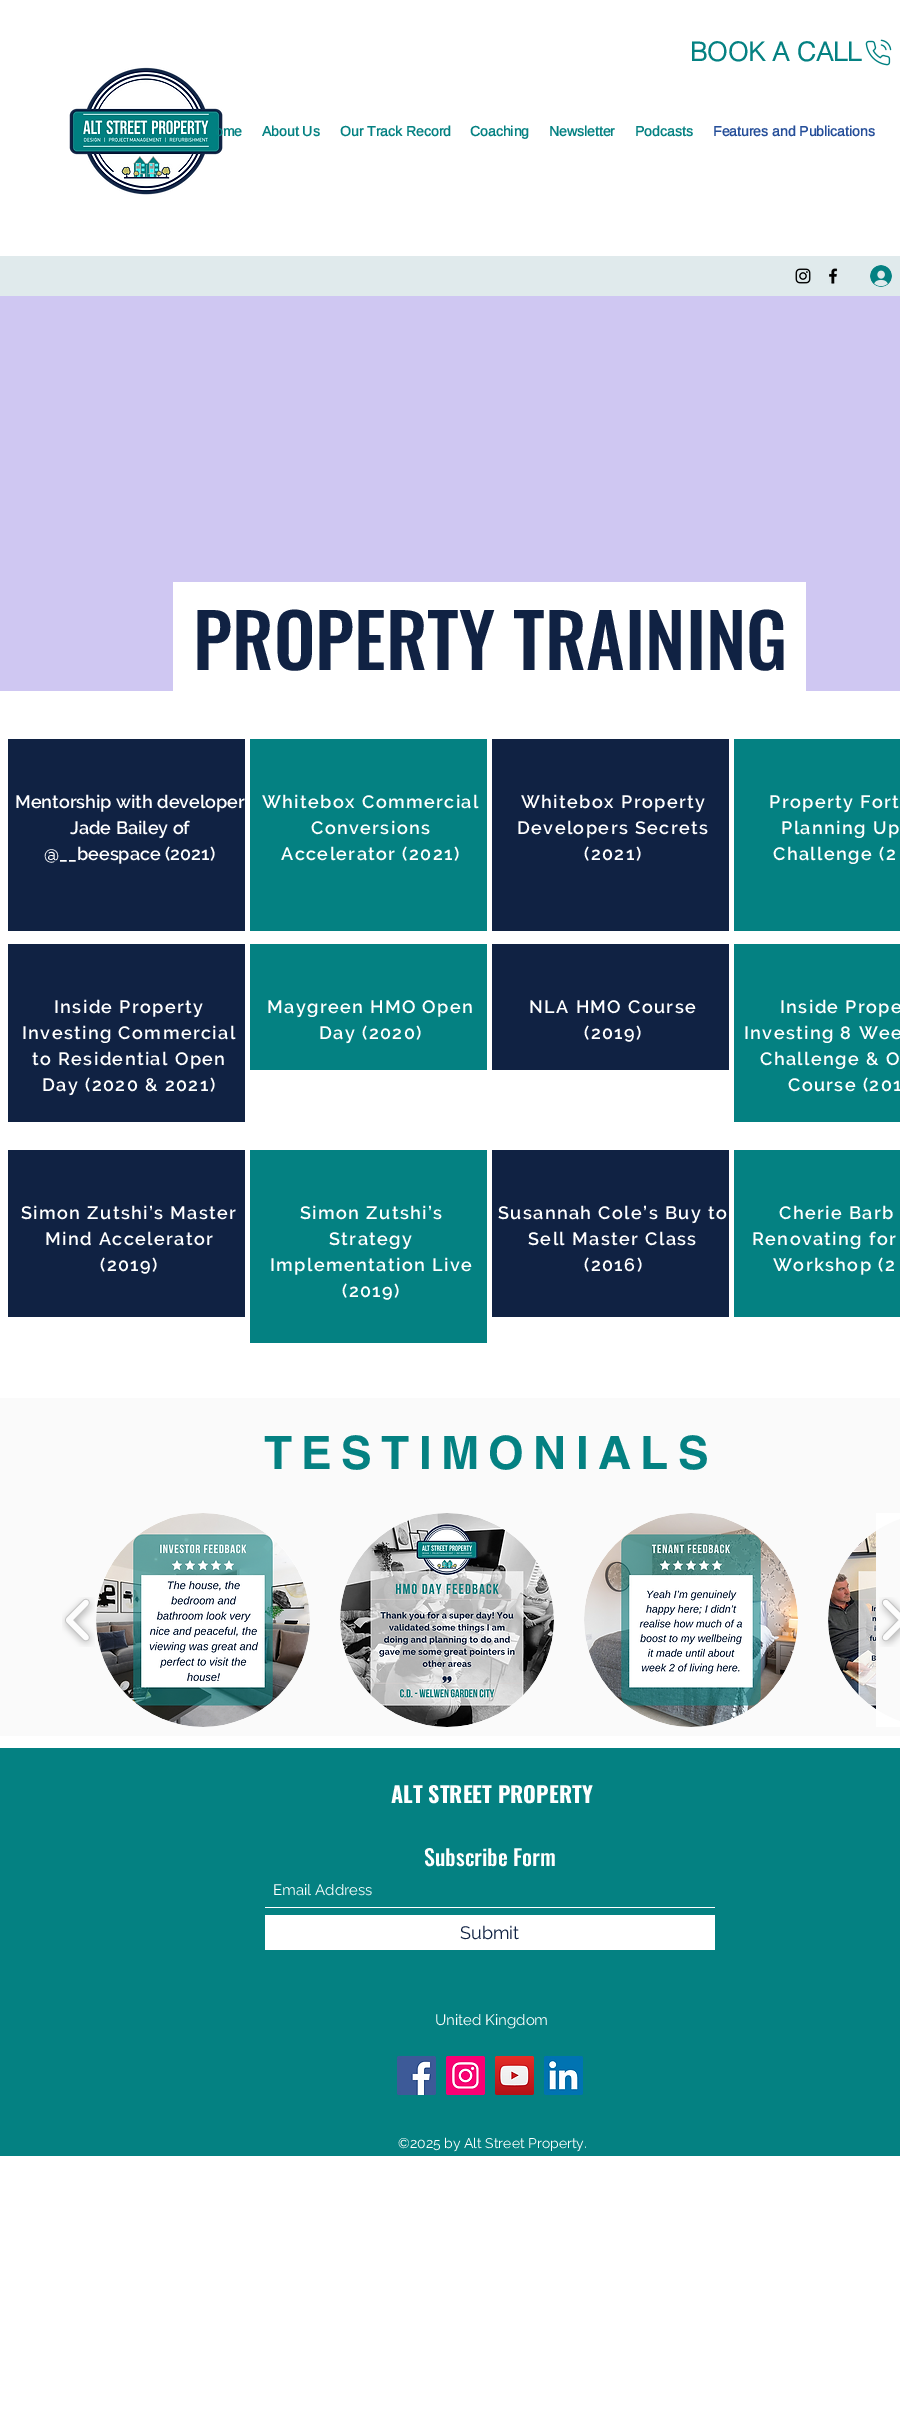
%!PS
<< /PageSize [900 2426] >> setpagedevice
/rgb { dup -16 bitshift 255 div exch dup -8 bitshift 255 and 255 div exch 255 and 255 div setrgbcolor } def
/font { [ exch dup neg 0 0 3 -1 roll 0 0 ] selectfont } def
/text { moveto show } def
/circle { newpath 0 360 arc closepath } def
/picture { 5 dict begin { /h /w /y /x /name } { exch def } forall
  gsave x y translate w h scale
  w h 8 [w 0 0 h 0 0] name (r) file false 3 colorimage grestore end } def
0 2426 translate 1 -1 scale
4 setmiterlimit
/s1 { /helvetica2-Bold 26 font 16#048182 rgb } def
/s2 { /Arimo-Bold 14 font 16#048182 rgb } def
/s3 { /Arimo-Bold 14 font 16#254E99 rgb } def
/s4 { /Oswald-Medium 74 font 16#102243 rgb } def
/s5 { /Raleway-SemiBold 18 font 16#FFFFFF rgb } def
/s6 { /Oswald-Bold 22 font 16#FFFFFF rgb } def
/s7 { /Oswald-Medium 22 font 16#FFFFFF rgb } def
/s8 { /Raleway-Regular 15 font 16#FFFFFF rgb } def
/s9 { /Raleway-Regular 18 font 16#102243 rgb } def
/s10 { /Raleway-Regular 14 font 16#FFFFFF rgb } def
16#FFFFFF rgb
0 0 900 2426 rectfill
(pic1.raw) 69 67 154 128 picture
s1
(BOOK A CALL) 690 61 text
(pic2.raw) 865 39 27 27 picture
s2
(ome) 215 136 text
(About Us) 262 136 text
(Our Track Record) 340 136 text
(Coaching) 470 136 text
(Newsletter) 549 136 text
(Podcasts) 635 136 text
s3
(Features and Publications) 713 136 text
16#E0EAEC rgb
0 256 900 40 rectfill
(pic3.raw) 795 268 16 16 picture
(pic4.raw) 829 268 9 16 picture
(pic5.raw) 870 265 22 22 picture
16#CFC7F2 rgb
0 296 900 395 rectfill
16#FFFFFF rgb
173 582 633 109 rectfill
s4
(PROPERTY TRAINING) 193 670 text
8 739 237 192 rectfill
s5
(Mentorship with developer) 15 808 text
(Jade Bailey of) 70 834 text
(@__beespace \(2021\)) 44 860 text
16#048182 rgb
250 739 237 192 rectfill
16#FFFFFF rgb
262 808 moveto 1.4 0 (Whitebox Commercial) ashow
311 834 moveto 1.4 0 (Conversions) ashow
281 860 moveto 1.4 0 (Accelerator \(2021\)) ashow
16#102243 rgb
492 739 237 192 rectfill
16#FFFFFF rgb
521 808 moveto 1.4 0 (Whitebox Property) ashow
517 834 moveto 1.4 0 (Developers Secrets) ashow
584 860 moveto 1.4 0 (\(2021\)) ashow
16#048182 rgb
734 739 166 192 rectfill
16#FFFFFF rgb
769 808 moveto 1.4 0 (Property Fort) ashow
781 834 moveto 1.4 0 (Planning Up) ashow
773 860 moveto 1.4 0 (Challenge \(2) ashow
16#102243 rgb
8 944 237 178 rectfill
16#FFFFFF rgb
54 1013 moveto 1.4 0 (Inside Property) ashow
22 1039 moveto 1.4 0 (Investing Commercial) ashow
32 1065 moveto 1.4 0 (to Residential Open) ashow
42 1091 moveto 1.4 0 (Day \(2020 & 2021\)) ashow
16#048182 rgb
250 944 237 126 rectfill
16#FFFFFF rgb
267 1013 moveto 1.4 0 (Maygreen HMO Open) ashow
319 1039 moveto 1.4 0 (Day \(2020\)) ashow
16#102243 rgb
492 944 237 126 rectfill
16#FFFFFF rgb
529 1013 moveto 1.4 0 (NLA HMO Course) ashow
584 1039 moveto 1.4 0 (\(2019\)) ashow
16#048182 rgb
734 944 166 178 rectfill
16#FFFFFF rgb
780 1013 moveto 1.4 0 (Inside Prope) ashow
744 1039 moveto 1.4 0 (Investing 8 Wee) ashow
760 1065 moveto 1.4 0 (Challenge & O) ashow
788 1091 moveto 1.4 0 (Course \(201) ashow
16#102243 rgb
8 1150 237 167 rectfill
16#FFFFFF rgb
21 1219 moveto 1.4 0 (Simon Zutshi’s Master) ashow
45 1245 moveto 1.4 0 (Mind Accelerator) ashow
100 1271 moveto 1.4 0 (\(2019\)) ashow
16#048182 rgb
250 1150 237 193 rectfill
16#FFFFFF rgb
300 1219 moveto 1.4 0 (Simon Zutshi’s) ashow
329 1245 moveto 1.4 0 (Strategy) ashow
270 1271 moveto 1.4 0 (Implementation Live) ashow
342 1297 moveto 1.4 0 (\(2019\)) ashow
16#102243 rgb
492 1150 237 167 rectfill
16#FFFFFF rgb
498 1219 moveto 1.4 0 (Susannah Cole’s Buy to) ashow
528 1245 moveto 1.4 0 (Sell Master Class) ashow
584 1271 moveto 1.4 0 (\(2016\)) ashow
16#048182 rgb
734 1150 166 167 rectfill
16#FFFFFF rgb
779 1219 moveto 1.4 0 (Cherie Barb) ashow
752 1245 moveto 1.4 0 (Renovating for) ashow
773 1271 moveto 1.4 0 (Workshop \(2) ashow
16#FAFAFA rgb
0 1398 900 338 rectfill
/helvetica-Bold 46 font
16#048182 rgb
264 1469 moveto 9.25 0 (TESTIMONIALS) ashow
(pic6.raw) 62 1597 33 50 picture
16#FFFFFF rgb
203 1620 107 circle fill
(pic7.raw) 96 1513 214 214 picture
447 1620 107 circle fill
(pic8.raw) 340 1513 214 214 picture
691 1620 107 circle fill
(pic9.raw) 584 1513 214 214 picture
935 1513 moveto 876 1513 lineto 876 1727 lineto 935 1727 lineto 876 1727 828 1679 828 1620 curveto 828 1561 876 1513 935 1513 curveto closepath fill
(pic10.raw) 828 1531 48 178 picture
(pic11.raw) 879 1597 21 50 picture
16#048182 rgb
0 1748 900 408 rectfill
s6
(ALT STREET PROPERTY) 391 1803 text
s7
(Subscribe Form) 424 1866 text
265 1907 450 1 rectfill
s8
(Email Address) 273 1895 text
265 1915 450 35 rectfill
s9
(Submit) 460 1939 text
s8
(United Kingdom) 435 2025 text
(pic12.raw) 397 2056 39 39 picture
(pic13.raw) 446 2056 39 39 picture
(pic14.raw) 495 2056 39 39 picture
(pic15.raw) 544 2056 39 39 picture
s10
(©2025 by Alt Street Property.) 398 2148 text
showpage
